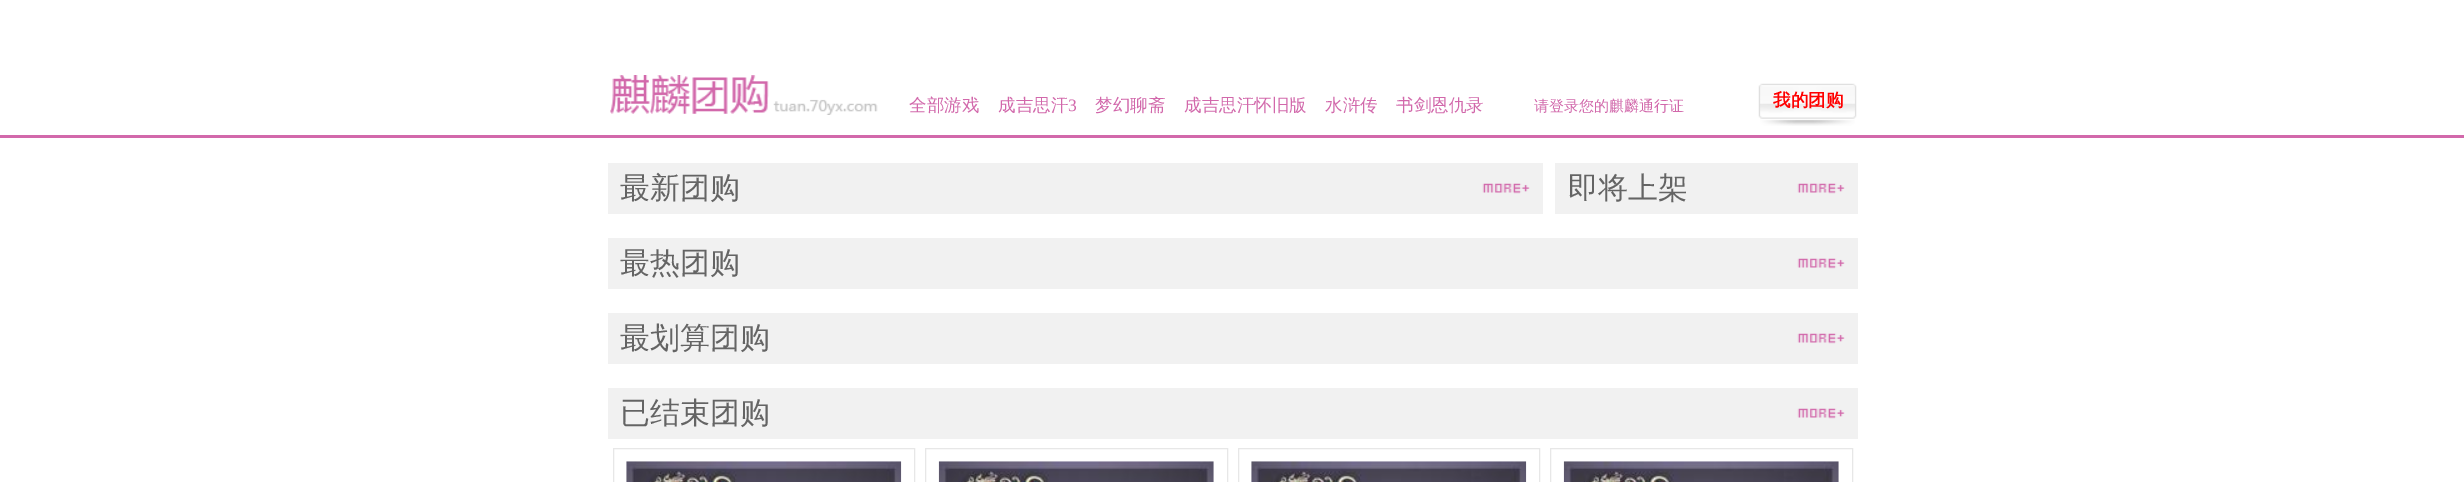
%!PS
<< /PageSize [2464 482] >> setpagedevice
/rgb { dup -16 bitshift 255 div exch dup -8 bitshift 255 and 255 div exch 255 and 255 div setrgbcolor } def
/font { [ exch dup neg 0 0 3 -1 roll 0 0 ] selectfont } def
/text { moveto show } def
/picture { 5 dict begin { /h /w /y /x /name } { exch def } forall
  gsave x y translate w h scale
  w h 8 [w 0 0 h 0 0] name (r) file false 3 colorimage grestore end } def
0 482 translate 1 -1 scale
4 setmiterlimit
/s1 { /WenQuanYiZenHei-Medium 17.5 font 16#D268AB rgb } def
/s2 { /LiberationSerif-Regular 17.5 font 16#D268AB rgb } def
/s3 { /WenQuanYiZenHei-Medium 15 font 16#D268AB rgb } def
/s4 { /WenQuanYiZenHei-Bold 17.5 font 16#FF0000 rgb } def
/s5 { /WenQuanYiZenHei-Medium 30 font 16#646464 rgb } def
16#FFFFFF rgb
0 0 2464 482 rectfill
16#D268AB rgb
0 135 2464 3 rectfill
(pic1.raw) 610 75 268 40 picture
s1
(全部游戏) 909 111 text
(成吉思汗) 998 111 text
s2
(3) 1068 111 text
s1
(梦幻聊斋) 1095 111 text
(成吉思汗怀旧版) 1184 111 text
(水浒传) 1325 111 text
(书剑恩仇录) 1396 111 text
s3
(请登录您的麒麟通行证) 1534 111 text
(pic2.raw) 1758 83 99 43 picture
s4
(我的团购) 1773 106 text
16#F1F1F1 rgb
608 163 935 51 rectfill
s5
(最新团购) 620 198 text
(pic3.raw) 1482 183 48 11 picture
16#F1F1F1 rgb
1555 163 303 51 rectfill
s5
(即将上架) 1568 198 text
(pic4.raw) 1797 183 48 11 picture
16#F1F1F1 rgb
608 238 1250 51 rectfill
s5
(最热团购) 620 273 text
(pic4.raw) 1797 258 48 11 picture
16#F1F1F1 rgb
608 313 1250 51 rectfill
s5
(最划算团购) 620 348 text
(pic4.raw) 1797 333 48 11 picture
16#F1F1F1 rgb
608 388 1250 51 rectfill
s5
(已结束团购) 620 423 text
(pic4.raw) 1797 408 48 11 picture
16#E7E7E7 rgb
613.5 448.5 301 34 rectstroke
(pic5.raw) 626 461 276 21 picture
925.5 448.5 302 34 rectstroke
(pic6.raw) 938 461 276 21 picture
1238.5 448.5 301 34 rectstroke
(pic7.raw) 1251 461 276 21 picture
1550.5 448.5 302 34 rectstroke
(pic8.raw) 1563 461 276 21 picture
showpage
